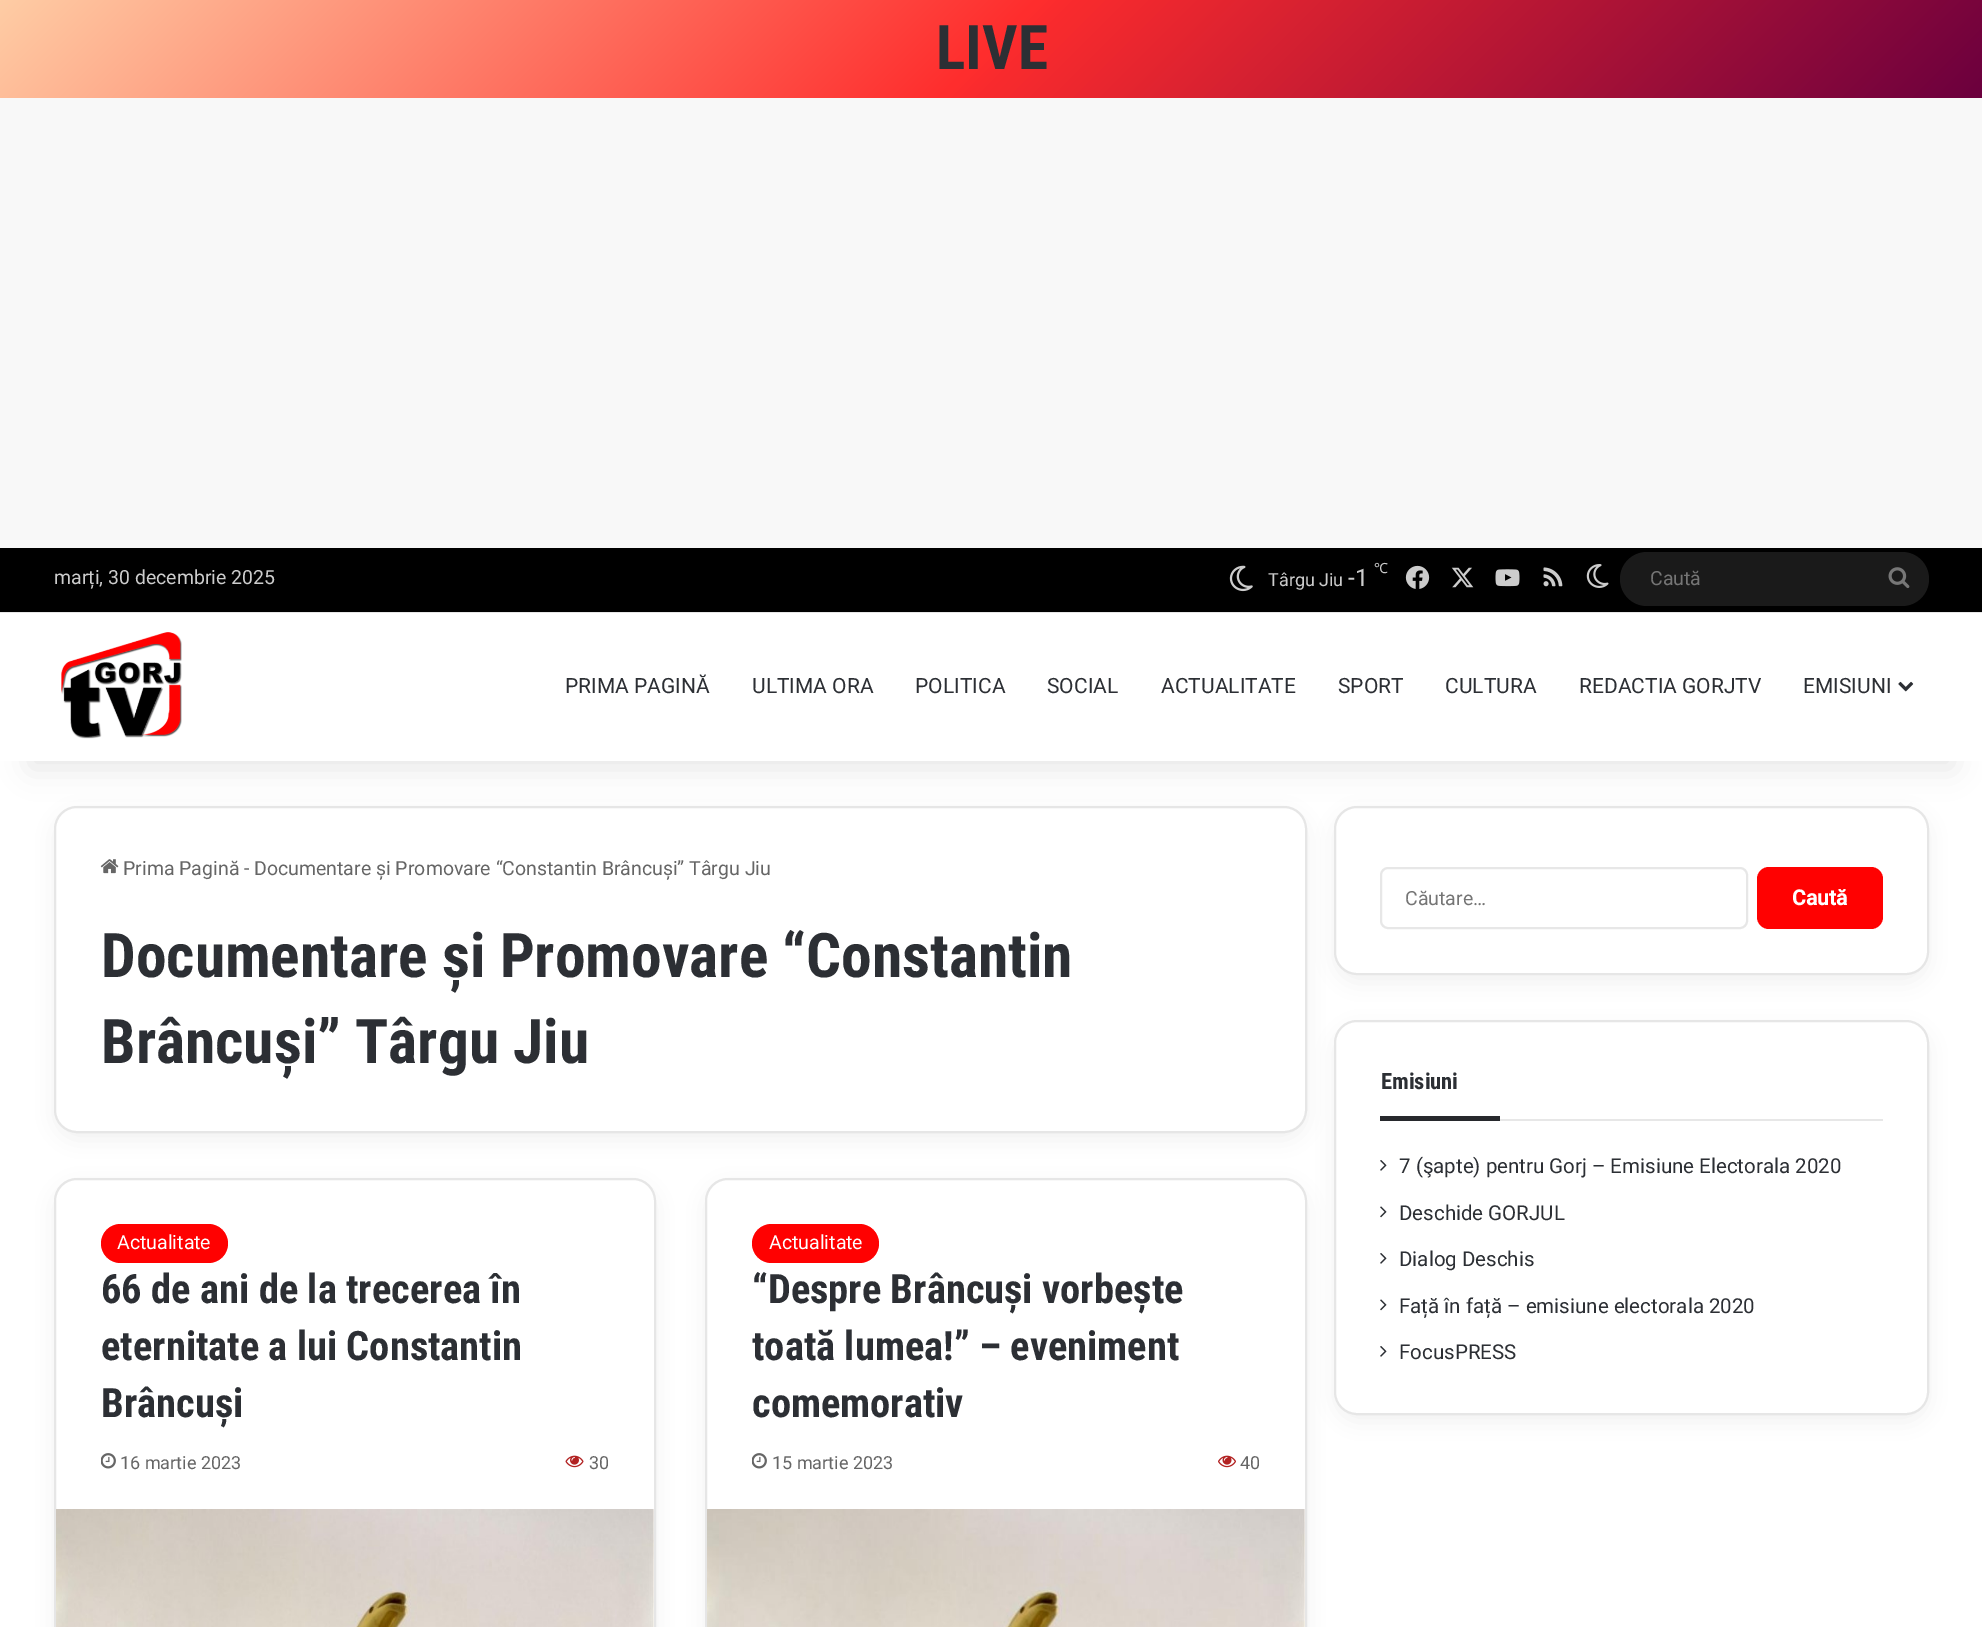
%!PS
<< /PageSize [1982 1627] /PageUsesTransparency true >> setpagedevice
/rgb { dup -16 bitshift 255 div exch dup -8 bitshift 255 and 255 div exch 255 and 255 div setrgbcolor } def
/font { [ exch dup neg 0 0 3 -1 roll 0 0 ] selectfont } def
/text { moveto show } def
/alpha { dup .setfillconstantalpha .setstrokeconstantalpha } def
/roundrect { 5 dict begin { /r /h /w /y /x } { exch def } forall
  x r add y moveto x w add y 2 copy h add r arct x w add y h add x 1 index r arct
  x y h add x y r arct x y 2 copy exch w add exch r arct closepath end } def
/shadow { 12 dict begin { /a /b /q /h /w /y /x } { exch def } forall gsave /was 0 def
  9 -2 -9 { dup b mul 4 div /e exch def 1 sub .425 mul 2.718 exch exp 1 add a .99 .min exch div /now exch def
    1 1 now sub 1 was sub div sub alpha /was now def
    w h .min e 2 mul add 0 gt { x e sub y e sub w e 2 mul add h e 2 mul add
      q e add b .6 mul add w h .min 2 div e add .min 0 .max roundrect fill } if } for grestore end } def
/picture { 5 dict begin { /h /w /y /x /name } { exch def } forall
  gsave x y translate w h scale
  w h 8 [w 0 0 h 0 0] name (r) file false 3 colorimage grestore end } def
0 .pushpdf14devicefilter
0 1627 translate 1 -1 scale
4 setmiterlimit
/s1 { /RobotoCondensed-Bold 61.5 font 16#2C2F34 rgb } def
/s2 { /Roboto-Regular 19.5 font 16#CCCCCC rgb } def
/s3 { /Roboto-Regular 18 font 16#CCCCCC rgb } def
/s4 { /Roboto-Regular 24 font 16#CCCCCC rgb } def
/s5 { /NotoSans-Regular 14 font 16#CCCCCC rgb } def
/s6 { /Roboto-Regular 19.5 font 16#757575 rgb } def
/s7 { /Roboto-Regular 21 font 16#2C2F34 rgb } def
/s8 { /Roboto-Regular 19.5 font 16#666666 rgb } def
/s9 { /Roboto-Regular 19.5 font 16#FFFFFF rgb } def
/s10 { /RobotoCondensed-Bold 40.5 font 16#2C2F34 rgb } def
/s11 { /Roboto-Regular 18 font 16#666666 rgb } def
/s12 { /Roboto-Bold 21 font 16#FFFFFF rgb } def
/s13 { /RobotoCondensed-Bold 22.5 font 16#2C2F34 rgb } def
/s14 { /Roboto-Regular 20.5 font 16#2C2F34 rgb } def
16#F8F8F8 rgb
0 0 1982 1627 rectfill
gsave 0 0 moveto 1982 0 lineto 1982 98 lineto 0 98 lineto closepath clip newpath
<< /ShadingType 2 /ColorSpace /DeviceRGB /Coords [471 -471 1512 569] /Extend [true true] /Function << /FunctionType 3 /Domain [0 1] /Functions [<< /FunctionType 2 /Domain [0 1] /C0 [0.996 0.804 0.647] /C1 [0.996 0.176 0.176] /N 1 >> << /FunctionType 2 /Domain [0 1] /C0 [0.996 0.176 0.176] /C1 [0.42 0 0.243] /N 1 >>] /Bounds [0.5] /Encode [0 1 0 1] >> >> shfill grestore
s1
(LIVE) 936 69 text
16#FFFFFF rgb
0 761 1982 866 rectfill
16#000000 rgb
54 813 1253 327 23 11 0.05 shadow
16#FFFFFF rgb
54 806 1253 327 23 roundrect fill
0.1 alpha
16#0A0A0A rgb
2 setlinewidth
55 807 1251 325 22 roundrect stroke
1 alpha
16#000000 rgb
1334 813 595 170 23 11 0.05 shadow
16#FFFFFF rgb
1335 807 593 167 22 roundrect gsave fill grestore
16#E6E6E6 rgb
stroke
16#000000 rgb
30 615 1923 153 0 15 0.1 shadow
16#FFFFFF rgb
0 613 1982 148 rectfill
16#E6E6E6 rgb
0 612 1982 1 rectfill
16#000000 rgb
0 548 1982 64 rectfill
s2
(marți, 30 decembrie 2025) 54 584 text
(pic1.raw) 1229 565 24 27 picture
s3
(Târgu Jiu) 1268 586 text
s4
(-1) 1348 586 text
s5
(℃) 1374 573 text
(pic2.raw) 1405 565 25 24 picture
(pic3.raw) 1451 567 23 21 picture
(pic4.raw) 1495 569 25 18 picture
(pic5.raw) 1543 567 20 20 picture
(pic6.raw) 1586 564 23 24 picture
16#1A1A1A rgb
1620 552 309 54 27 roundrect fill
s6
(Caută) 1650 585 text
(pic7.raw) 1888 567 22 22 picture
(pic8.raw) 61 632 121 107 picture
s7
(PRIMA PAGINĂ) 565 693 text
(ULTIMA ORA) 752 693 text
(POLITICA) 915 693 text
(SOCIAL) 1047 693 text
(ACTUALITATE) 1161 693 text
(SPORT) 1338 693 text
(CULTURA) 1445 693 text
(REDACTIA GORJTV) 1579 693 text
(EMISIUNI) 1803 693 text
(pic9.raw) 1898 681 16 11 picture
(pic10.raw) 100 859 19 15 picture
s8
(Prima Pagină) 123 875 text
(-) 244 875 text
(Documentare și Promovare “Constantin Brâncuși” Târgu Jiu) 254 875 text
s1
(Documentare și Promovare “Constantin) 101 977 text
(Brâncuși” Târgu Jiu) 101 1063 text
16#000000 rgb
54 1185 602 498 23 11 0.05 shadow
16#FFFFFF rgb
55 1179 600 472 22 roundrect gsave fill grestore
16#E6E6E6 rgb
stroke
16#FF0101 rgb
101 1224 127 39 19.5 roundrect fill
s9
(Actualitate) 117 1249 text
s10
(66 de ani de la trecerea în) 101 1303 text
(eternitate a lui Constantin) 101 1360 text
(Brâncuși) 101 1417 text
(pic11.raw) 101 1453 15 16 picture
s11
(16 martie 2023) 120 1469 text
(pic12.raw) 565 1455 19 13 picture
(30) 589 1469 text
(pic13.raw) 56 1509 598 118 picture
16#000000 rgb
705 1185 602 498 23 11 0.05 shadow
16#FFFFFF rgb
706 1179 600 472 22 roundrect gsave fill grestore
16#E6E6E6 rgb
stroke
16#FF0101 rgb
752 1224 127 39 19.5 roundrect fill
s9
(Actualitate) 769 1249 text
s10
(“Despre Brâncuși vorbește) 752 1303 text
(toată lumea!” – eveniment) 752 1360 text
(comemorativ) 752 1417 text
(pic11.raw) 752 1453 15 16 picture
s11
(15 martie 2023) 772 1469 text
(pic14.raw) 1218 1455 18 13 picture
(40) 1240 1469 text
(pic15.raw) 707 1509 598 118 picture
16#E7E7E7 rgb
1381 868 366 60 7 roundrect stroke
s6
(Căutare…) 1405 905 text
16#FF0101 rgb
1757 867 126 62 12 roundrect fill
s12
(Caută) 1792 905 text
16#000000 rgb
1334 1028 595 394 23 11 0.05 shadow
16#FFFFFF rgb
1334 1020 595 395 23 roundrect fill
0.1 alpha
16#0A0A0A rgb
1335 1021 593 393 22 roundrect stroke
1 alpha
16#E7E7E7 rgb
1500 1119 383 2 rectfill
s13
(Emisiuni) 1381 1089 text
16#27292D rgb
1380 1116 120 5 rectfill
(pic16.raw) 1380 1160 7 11 picture
s14
(7 \(şapte\) pentru Gorj – Emisiune Electorala 2020) 1399 1173 text
(pic17.raw) 1380 1206 7 12 picture
(Deschide GORJUL) 1399 1220 text
(pic16.raw) 1380 1253 7 11 picture
(Dialog Deschis) 1399 1266 text
(pic17.raw) 1380 1299 7 12 picture
(Față în față – emisiune electorala 2020) 1399 1313 text
(pic16.raw) 1380 1346 7 11 picture
(FocusPRESS) 1399 1359 text
.poppdf14devicefilter showpage
